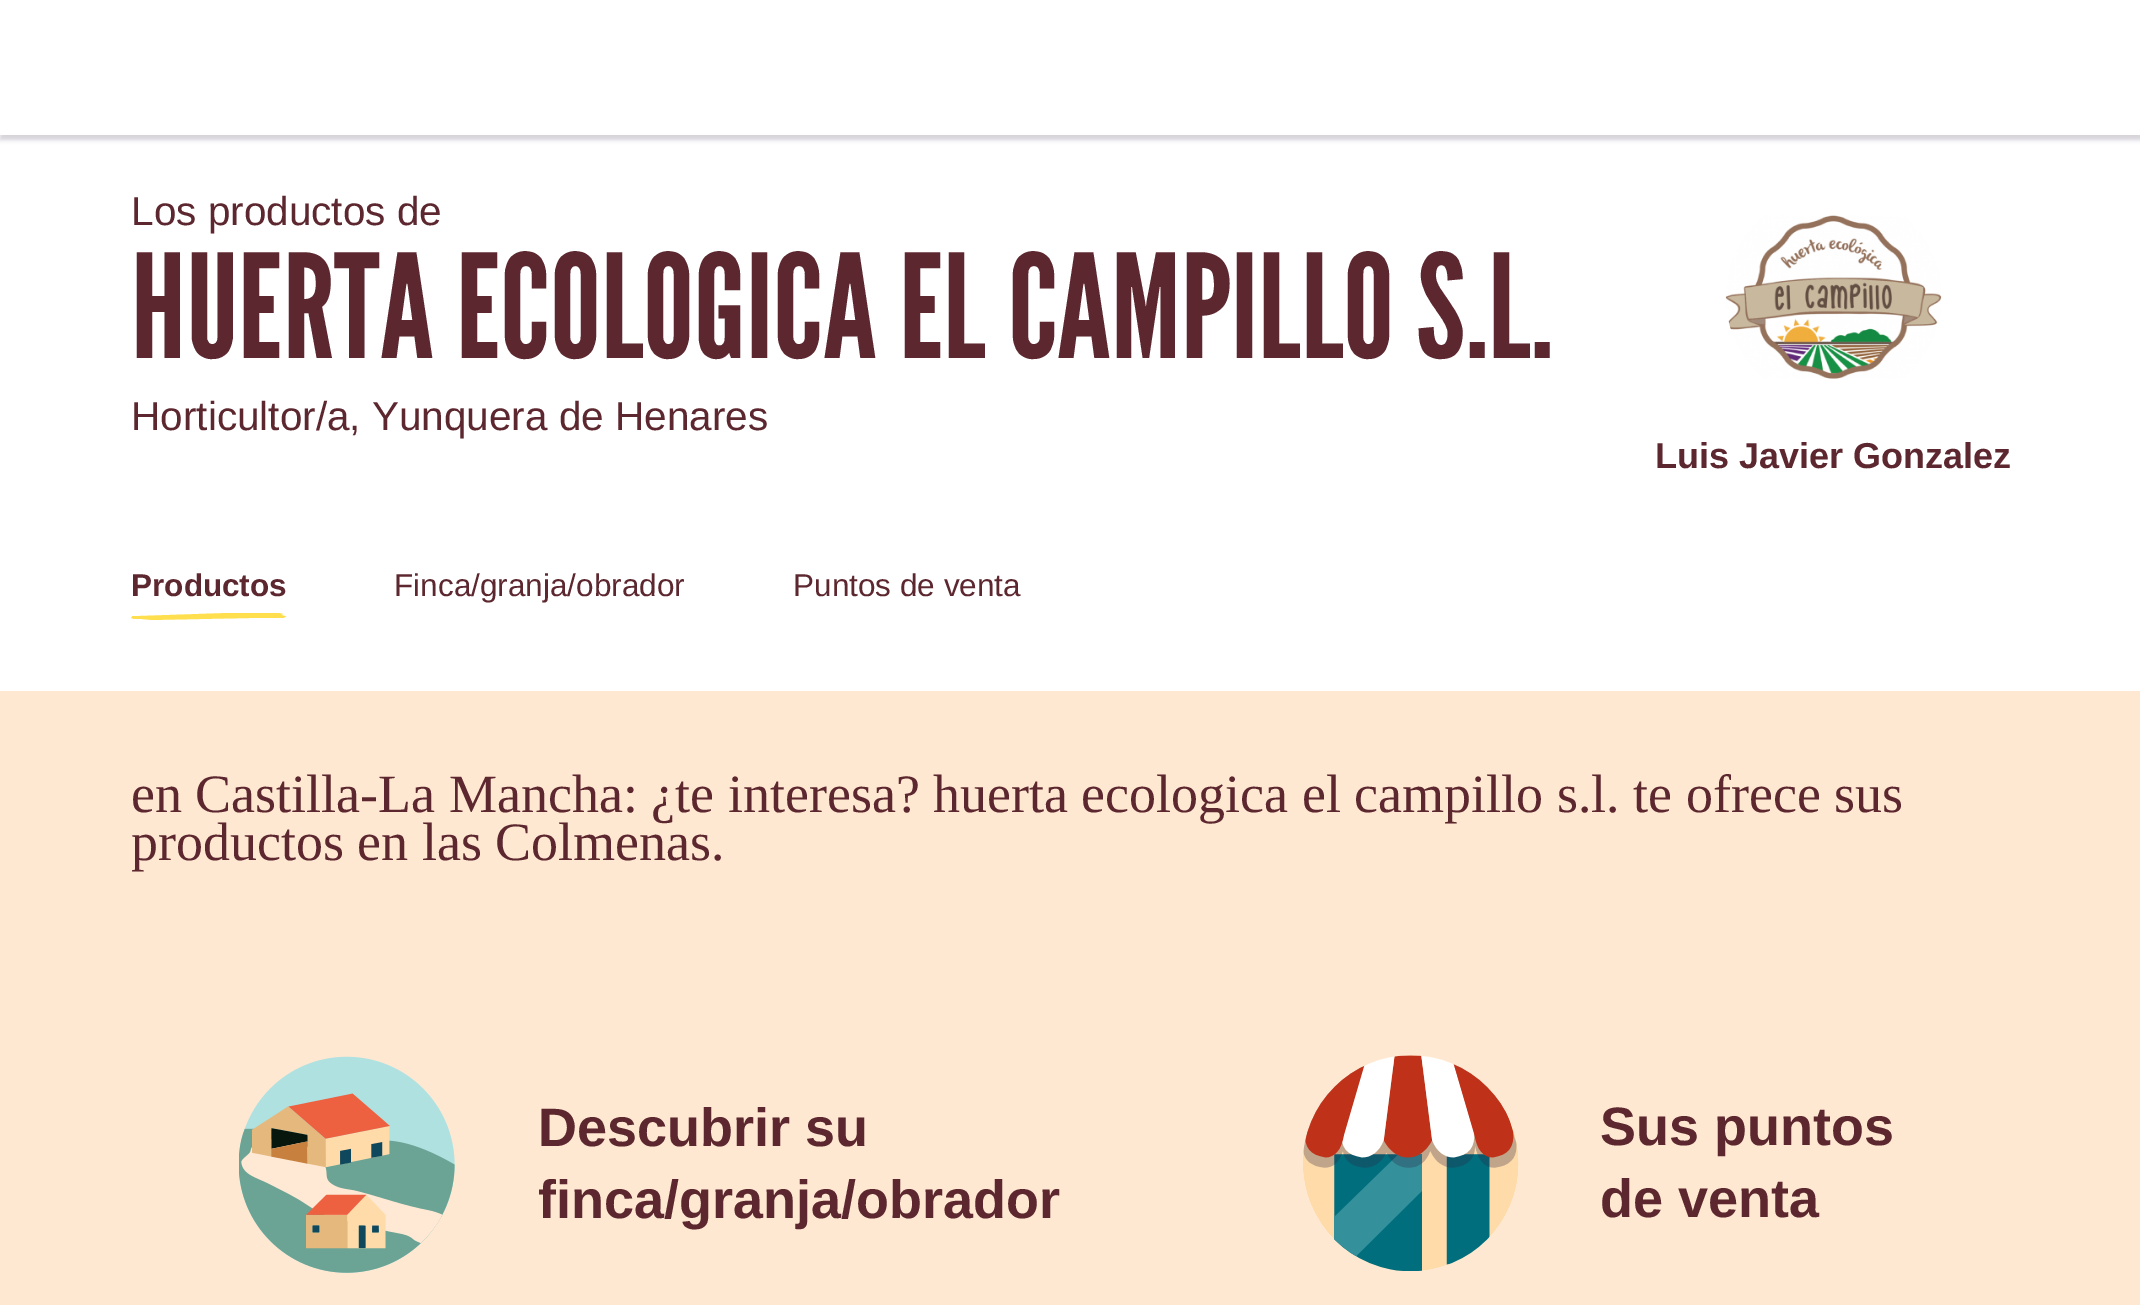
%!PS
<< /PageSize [2140 1305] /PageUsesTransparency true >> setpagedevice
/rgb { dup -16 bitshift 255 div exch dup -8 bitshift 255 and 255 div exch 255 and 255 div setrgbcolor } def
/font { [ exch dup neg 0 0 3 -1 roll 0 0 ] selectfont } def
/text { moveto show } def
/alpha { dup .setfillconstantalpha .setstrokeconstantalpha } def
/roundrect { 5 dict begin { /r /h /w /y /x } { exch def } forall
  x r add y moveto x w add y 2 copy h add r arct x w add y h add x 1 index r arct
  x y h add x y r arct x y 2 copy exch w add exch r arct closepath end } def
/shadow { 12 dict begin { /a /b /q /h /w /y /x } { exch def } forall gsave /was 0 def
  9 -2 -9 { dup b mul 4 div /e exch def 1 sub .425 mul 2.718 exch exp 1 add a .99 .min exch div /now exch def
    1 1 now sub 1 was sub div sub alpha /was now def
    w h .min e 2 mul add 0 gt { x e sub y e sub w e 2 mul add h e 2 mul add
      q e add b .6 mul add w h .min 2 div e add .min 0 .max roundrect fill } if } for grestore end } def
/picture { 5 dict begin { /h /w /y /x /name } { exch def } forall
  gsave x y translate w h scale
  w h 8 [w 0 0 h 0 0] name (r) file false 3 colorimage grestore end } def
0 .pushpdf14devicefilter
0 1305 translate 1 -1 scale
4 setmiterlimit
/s1 { /LiberationSans-Regular 40.5 font 16#5C272F rgb } def
/s2 { /LeagueGothic-Regular 144 font 16#5C272F rgb } def
/s3 { /LiberationSans-Bold 36 font 16#5C272F rgb } def
/s4 { /LiberationSans-Bold 31.5 font 16#5C272F rgb } def
/s5 { /LiberationSans-Regular 31.5 font 16#5C272F rgb } def
/s6 { /LiberationSerif-Regular 54 font 16#5C272F rgb } def
/s7 { /LiberationSans-Bold 54 font 16#5C272F rgb } def
16#FFE8D2 rgb
0 0 2140 1305 rectfill
16#FFFFFF rgb
0 135 2140 556 rectfill
16#2D2846 rgb
0 5 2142 135 0 2 0.2 shadow
16#FFFFFF rgb
0 0 2140 135 rectfill
s1
(Los productos de) 131 225 text
s2
(HUERTA ECOLOGICA EL CAMPILLO S.L.) 131 358 text
s1
(Horticultor/a, Yunquera de Henares) 131 430 text
(pic1.raw) 1725 215 217 164 picture
s3
(Luis Javier Gonzalez) 1655 468 text
s4
(Productos) 131 596 text
16#FFDF4D rgb
285 616 moveto 281 615 lineto 283 614 lineto 279 613 lineto 228 613 lineto 199 614 169 615 140 616 curveto 133 616 lineto 132 616 132 617 131 618 curveto 134 619 lineto 152 619 lineto 142 620 lineto 150 620 lineto 249 618 lineto 283 618 lineto 285 618 284 617 285 617 curveto 288 616 284 616 282 616 curveto 285 616 lineto eofill
s5
(Finca/granja/obrador) 394 596 text
(Puntos de venta) 793 596 text
s6
(en Castilla-La Mancha: ¿te interesa? huerta ecologica el campillo s.l. te ofrece sus) 131 812 text
(productos en las Colmenas.) 131 860 text
(pic2.raw) 239 1056 216 217 picture
s7
(Descubrir su) 538 1146 text
(finca/granja/obrador) 538 1218 text
(pic3.raw) 1303 1055 216 216 picture
(Sus puntos) 1600 1145 text
(de venta) 1600 1217 text
.poppdf14devicefilter showpage
